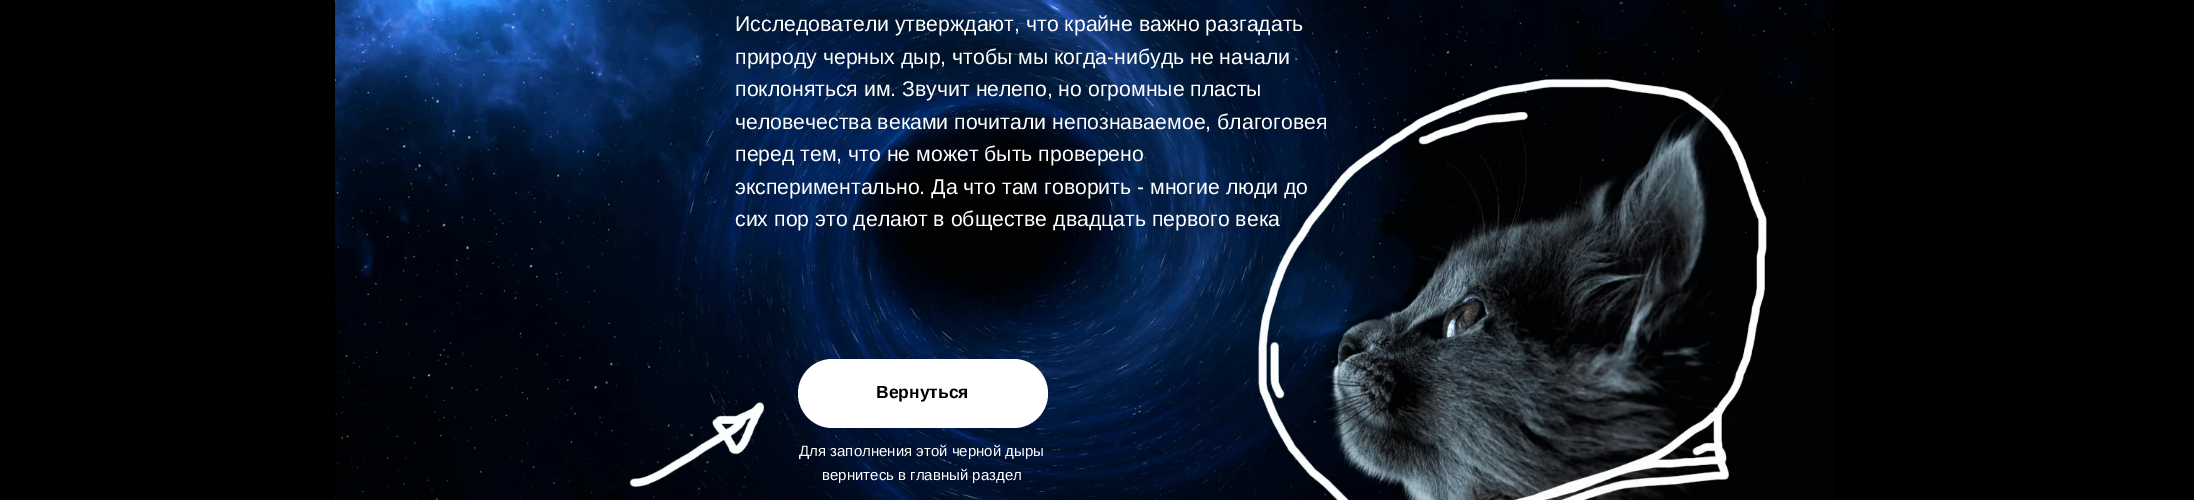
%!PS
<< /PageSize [2194 500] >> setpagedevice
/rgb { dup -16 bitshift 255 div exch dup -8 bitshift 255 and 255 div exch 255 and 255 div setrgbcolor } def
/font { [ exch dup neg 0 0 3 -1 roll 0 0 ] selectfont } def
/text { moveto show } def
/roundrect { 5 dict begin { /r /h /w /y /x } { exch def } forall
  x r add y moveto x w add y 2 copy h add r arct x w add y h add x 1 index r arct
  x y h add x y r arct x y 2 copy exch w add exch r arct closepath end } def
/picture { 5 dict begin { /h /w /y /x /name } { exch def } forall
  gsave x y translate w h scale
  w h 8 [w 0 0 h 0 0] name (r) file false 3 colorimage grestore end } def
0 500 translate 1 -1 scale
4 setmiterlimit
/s1 { /LiberationSans-Regular 21.25 font 16#FFFFFF rgb } def
/s2 { /LiberationSans-Bold 17.5 font 16#000000 rgb } def
/s3 { /LiberationSans-Regular 15 font 16#FFFFFF rgb } def
16#000000 rgb
0 0 2194 500 rectfill
(pic1.raw) 335 0 1500 500 picture
s1
(Исследователи утверждают, что крайне важно разгадать) 735 31 text
(природу черных дыр, чтобы мы когда-нибудь не начали) 735 64 text
(поклоняться им. Звучит нелепо, но огромные пласты) 735 96 text
(человечества веками почитали непознаваемое, благоговея) 735 129 text
(перед тем, что не может быть проверено) 735 161 text
(экспериментально. Да что там говорить - многие люди до) 735 194 text
(сих пор это делают в обществе двадцать первого века) 735 226 text
798 359 250 69 34.5 roundrect fill
s2
(Вернуться) 876 398 text
s3
(Для заполнения этой черной дыры) 799 456 text
(вернитесь в главный раздел) 822 480 text
showpage
